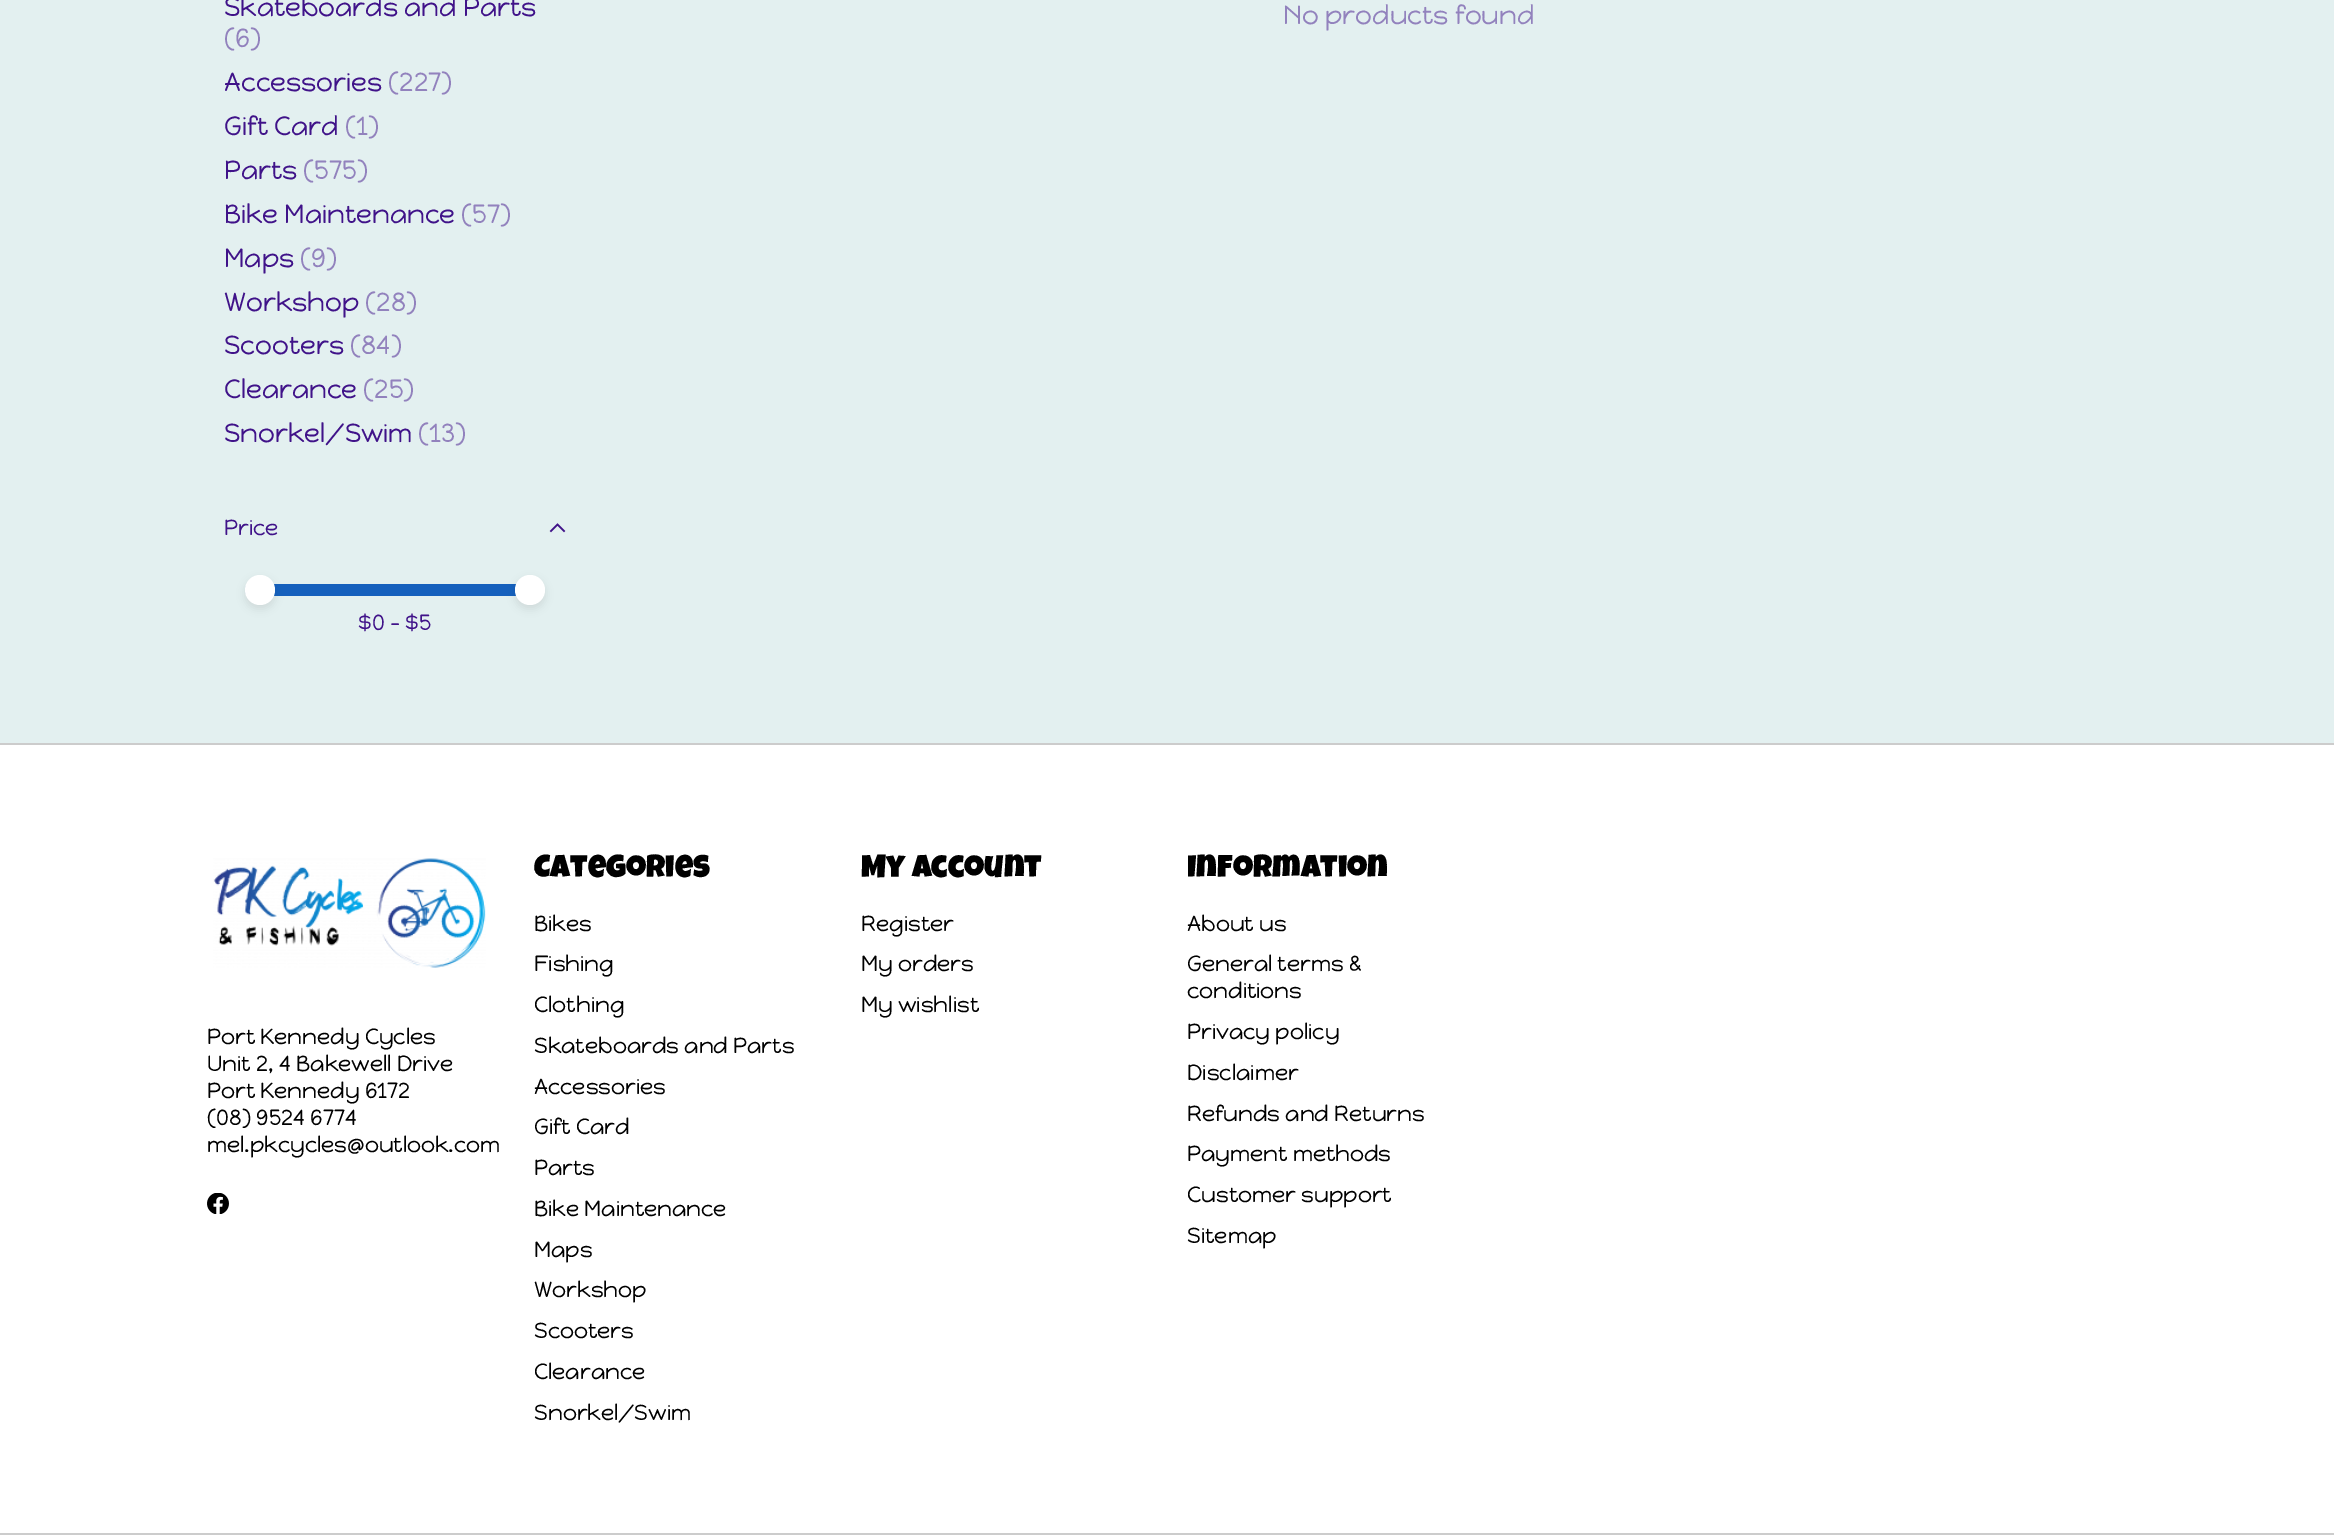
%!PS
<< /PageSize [2334 1538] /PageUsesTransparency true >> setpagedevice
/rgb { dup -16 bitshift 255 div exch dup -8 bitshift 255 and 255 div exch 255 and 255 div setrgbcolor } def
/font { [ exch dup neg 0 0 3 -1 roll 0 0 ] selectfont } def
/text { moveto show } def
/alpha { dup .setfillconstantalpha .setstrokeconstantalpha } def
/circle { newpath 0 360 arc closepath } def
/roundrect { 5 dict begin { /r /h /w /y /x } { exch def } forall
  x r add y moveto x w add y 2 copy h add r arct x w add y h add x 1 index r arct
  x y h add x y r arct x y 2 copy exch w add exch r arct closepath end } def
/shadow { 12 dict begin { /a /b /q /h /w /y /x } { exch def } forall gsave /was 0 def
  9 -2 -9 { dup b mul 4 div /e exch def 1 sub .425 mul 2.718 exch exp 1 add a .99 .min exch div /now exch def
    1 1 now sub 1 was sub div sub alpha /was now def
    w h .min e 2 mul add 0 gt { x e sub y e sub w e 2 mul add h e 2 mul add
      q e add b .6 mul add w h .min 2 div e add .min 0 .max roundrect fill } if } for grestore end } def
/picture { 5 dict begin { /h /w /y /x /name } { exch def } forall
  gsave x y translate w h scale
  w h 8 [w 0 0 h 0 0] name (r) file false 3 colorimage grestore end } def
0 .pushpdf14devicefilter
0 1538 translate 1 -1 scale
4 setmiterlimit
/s1 { /HappyMonkey-Regular 26.4 font 16#401389 rgb } def
/s2 { /HappyMonkey-Regular 26.4 font 16#9282BD rgb } def
/s3 { /HappyMonkey-Regular 22 font 16#401389 rgb } def
/s4 { /HappyMonkey-Regular 22 font 16#000000 rgb } def
/s5 { /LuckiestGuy-Regular 31.75 font 16#000000 rgb } def
16#E3F0F0 rgb
0 0 2334 1538 rectfill
s1
(Skateboards and Parts) 224 16 text
s2
(\(6\)) 224 47 text
s1
(Accessories) 224 91 text
s2
(\(227\)) 388 91 text
s1
(Gift Card) 224 135 text
s2
(\(1\)) 345 135 text
s1
(Parts) 224 179 text
s2
(\(575\)) 303 179 text
s1
(Bike Maintenance) 224 223 text
s2
(\(57\)) 461 223 text
s1
(Maps) 224 267 text
s2
(\(9\)) 300 267 text
s1
(Workshop) 224 311 text
s2
(\(28\)) 365 311 text
s1
(Scooters) 224 354 text
s2
(\(84\)) 350 354 text
s1
(Clearance) 224 398 text
s2
(\(25\)) 363 398 text
s1
(Snorkel/Swim) 224 442 text
s2
(\(13\)) 418 442 text
s3
(Price) 224 535 text
1.6 setlinewidth
2 setlinecap
551 531 moveto 557.5 524.5 lineto 564 531 moveto 557.5 524.5 lineto stroke
16#1560BD rgb
251 584 moveto 530 584 lineto 530 596 lineto 251 596 lineto 247.5 596 245 593.5 245 590 curveto 245 586.5 247.5 584 251 584 curveto closepath fill
16#000000 rgb
245 579 30 30 15 4 0.08 shadow
16#FFFFFF rgb
260 590 15 circle fill
s3
($0 - $5) 358 630 text
16#000000 rgb
515 579 30 30 15 4 0.08 shadow
16#FFFFFF rgb
530 590 15 circle fill
s2
(No products found) 1283 24 text
16#FFFFFF rgb
0 745 2334 793 rectfill
16#CCCCCC rgb
0 743 2334 2 rectfill
(pic1.raw) 213 858 273 110 picture
s4
(Port Kennedy Cycles) 207 1044 text
(Unit 2, 4 Bakewell Drive) 207 1071 text
(Port Kennedy 6172) 207 1098 text
(\(08\) 9524 6774) 207 1125 text
(mel.pkcycles@outlook.com) 207 1152 text
(pic2.raw) 207 1193 22 21 picture
s5
(Categories) 534 877 text
s4
(Bikes) 534 931 text
(Fishing) 534 971 text
(Clothing) 534 1012 text
(Skateboards and Parts) 534 1053 text
(Accessories) 534 1094 text
(Gift Card) 534 1134 text
(Parts) 534 1175 text
(Bike Maintenance) 534 1216 text
(Maps) 534 1257 text
(Workshop) 534 1297 text
(Scooters) 534 1338 text
(Clearance) 534 1379 text
(Snorkel/Swim) 534 1420 text
s5
(My account) 861 877 text
s4
(Register) 861 931 text
(My orders) 861 971 text
(My wishlist) 861 1012 text
s5
(Information) 1187 877 text
s4
(About us) 1187 931 text
(General terms &) 1187 971 text
(conditions) 1187 998 text
(Privacy policy) 1187 1039 text
(Disclaimer) 1187 1080 text
(Refunds and Returns) 1187 1121 text
(Payment methods) 1187 1161 text
(Customer support) 1187 1202 text
(Sitemap) 1187 1243 text
16#CCCCCC rgb
0 1533 2334 2 rectfill
.poppdf14devicefilter showpage
